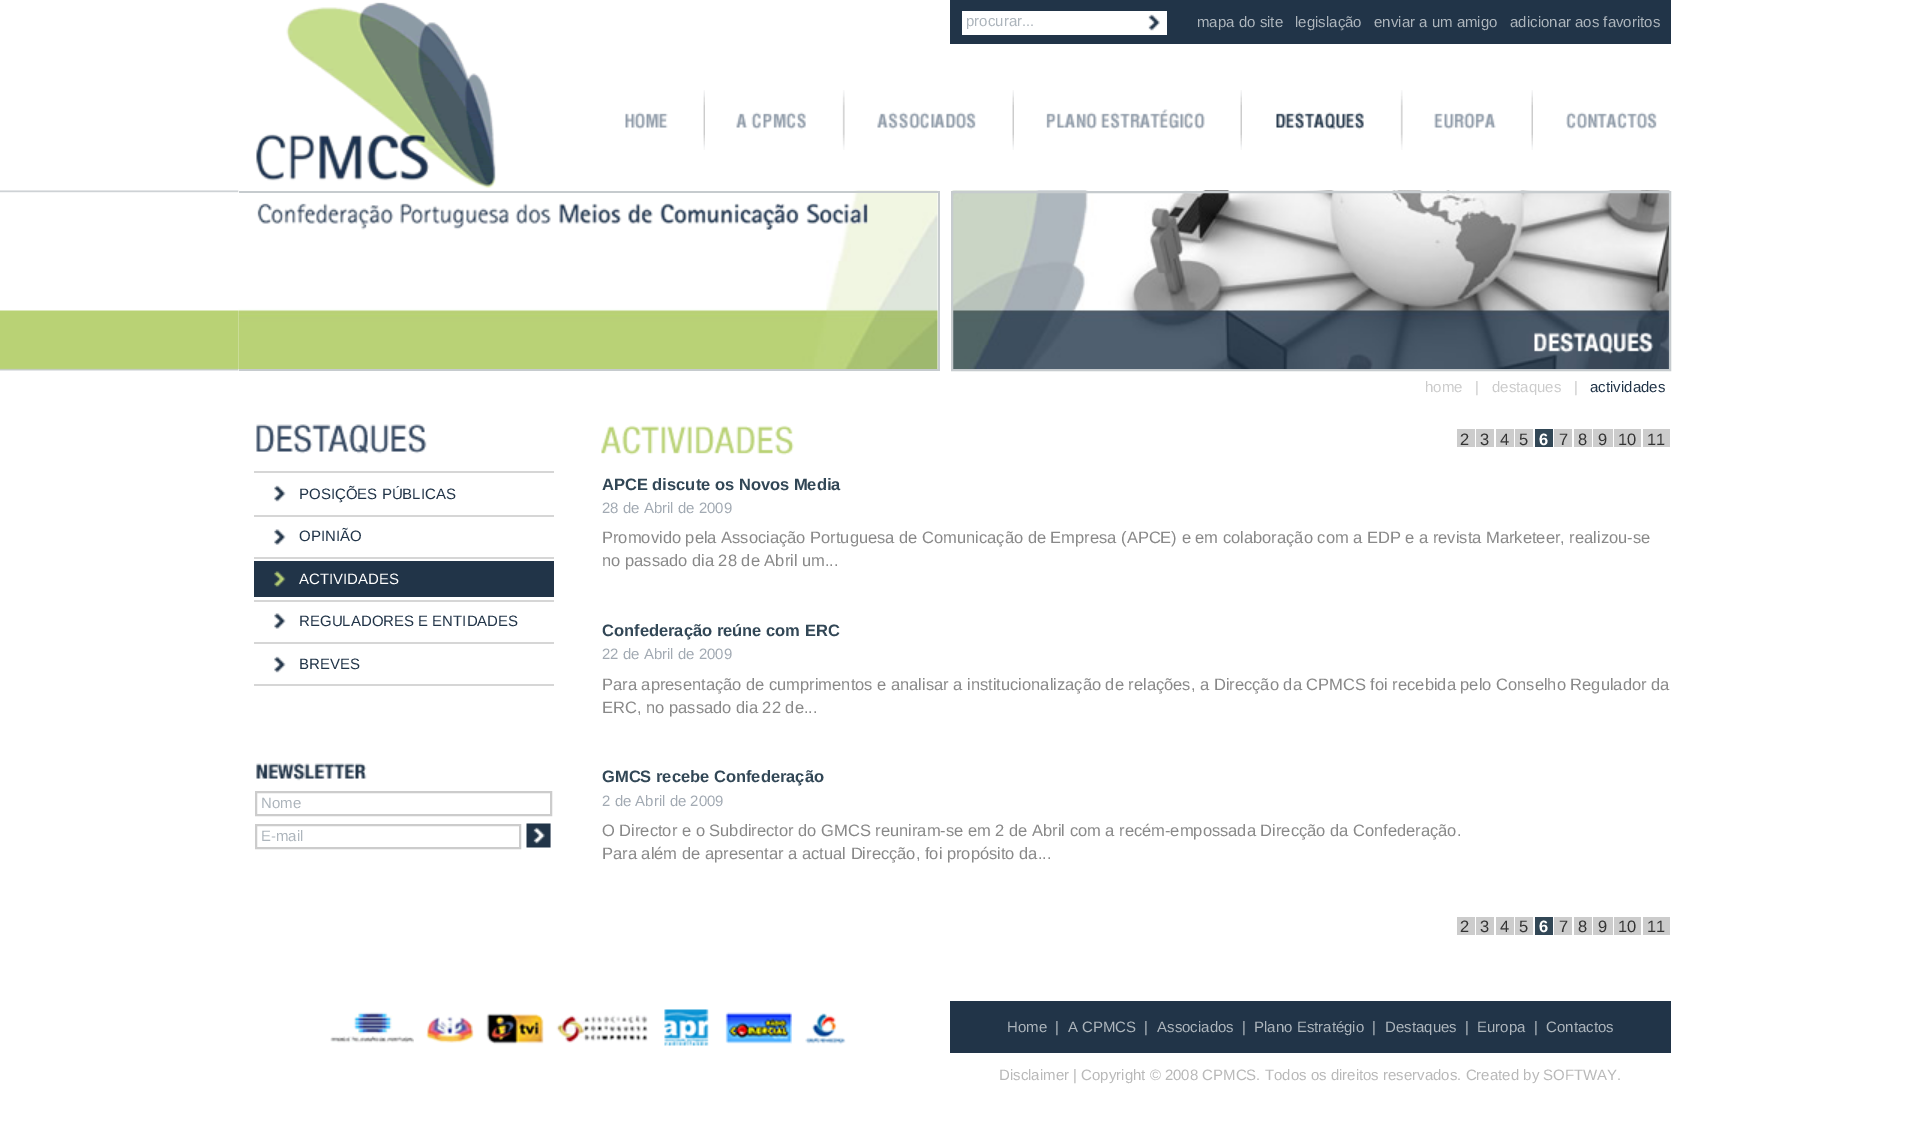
%!PS
<< /PageSize [1909 1126] >> setpagedevice
/rgb { dup -16 bitshift 255 div exch dup -8 bitshift 255 and 255 div exch 255 and 255 div setrgbcolor } def
/font { [ exch dup neg 0 0 3 -1 roll 0 0 ] selectfont } def
/text { moveto show } def
/picture { 5 dict begin { /h /w /y /x /name } { exch def } forall
  gsave x y translate w h scale
  w h 8 [w 0 0 h 0 0] name (r) file false 3 colorimage grestore end } def
0 1126 translate 1 -1 scale
4 setmiterlimit
/s1 { /LiberationSans-Regular 15 font 16#ADB5BC rgb } def
/s2 { /LiberationSans-Regular 15 font 16#CCCCCC rgb } def
/s3 { /LiberationSans-Regular 15 font 16#213448 rgb } def
/s4 { /LiberationSans-Regular 15 font 16#FFFFFF rgb } def
/s5 { /LiberationSans-Regular 16.5 font 16#333333 rgb } def
/s6 { /LiberationSans-Bold 16.5 font 16#FFFFFF rgb } def
/s7 { /LiberationSans-Bold 16.5 font 16#324756 rgb } def
/s8 { /LiberationSans-Regular 15 font 16#A2AAB3 rgb } def
/s9 { /LiberationSans-Regular 16.5 font 16#898989 rgb } def
/s10 { /LiberationSans-Regular 15 font 16#B9B9B9 rgb } def
16#FFFFFF rgb
0 0 1909 1126 rectfill
(pic1.raw) 256 2 240 186 picture
16#213448 rgb
950 0 721 44 rectfill
16#FFFFFF rgb
962 11 205 24 rectfill
s1
(procurar...) 966 26 text
(pic2.raw) 1148 14 12 17 picture
(mapa do site) 1197 27 text
(legislação) 1295 27 text
(enviar a um amigo) 1374 27 text
(adicionar aos favoritos) 1510 27 text
(pic3.raw) 625 90 80 60 picture
(pic4.raw) 736 90 109 60 picture
(pic5.raw) 877 90 137 60 picture
(pic6.raw) 1046 90 196 60 picture
(pic7.raw) 1276 90 127 60 picture
(pic8.raw) 1434 90 99 60 picture
(pic9.raw) 1566 112 91 18 picture
(pic14.raw) 0 190 239 181 picture
(pic10.raw) 238 190 700 179 picture
16#C6CBCE rgb
239 191 700 2 rectfill
938 191 2 180 rectfill
239 369 700 2 rectfill
(pic11.raw) 257 203 611 27 picture
(pic12.raw) 952 190 718 179 picture
2 setlinewidth
952 192 718 178 rectstroke
(pic13.raw) 1534 332 120 23 picture
s2
(home) 1425 392 text
(|) 1475 392 text
(destaques) 1492 392 text
(|) 1574 392 text
s3
(actividades) 1590 392 text
16#D6D6D6 rgb
254 684 300 2 rectfill
(pic15.raw) 256 424 171 30 picture
254 471 300 2 rectfill
(pic16.raw) 274 485 12 17 picture
s3
(POSIÇÕES PÚBLICAS) 299 499 text
16#D6D6D6 rgb
254 515 300 2 rectfill
(pic17.raw) 274 529 12 16 picture
s3
(OPINIÃO) 299 541 text
16#D6D6D6 rgb
254 557 300 2 rectfill
16#213448 rgb
254 561 300 36 rectfill
(pic18.raw) 274 571 12 16 picture
s4
(ACTIVIDADES) 299 584 text
16#D6D6D6 rgb
254 600 300 2 rectfill
(pic17.raw) 274 613 12 16 picture
s3
(REGULADORES E ENTIDADES) 299 626 text
16#D6D6D6 rgb
254 642 300 2 rectfill
(pic16.raw) 274 656 12 17 picture
s3
(BREVES) 299 669 text
(pic19.raw) 256 763 111 18 picture
16#CCCCCC rgb
256 792 295 23 rectstroke
s1
(Nome) 261 808 text
16#CCCCCC rgb
256 825 264 23 rectstroke
s1
(E-mail) 261 841 text
(pic20.raw) 526 823 25 25 picture
(pic21.raw) 601 425 193 30 picture
16#CCCCCC rgb
1457 429 18 18 rectfill
s5
(2) 1460 445 text
16#CCCCCC rgb
1476 429 18 18 rectfill
s5
(3) 1480 445 text
16#CCCCCC rgb
1496 429 18 18 rectfill
s5
(4) 1500 445 text
16#CCCCCC rgb
1515 429 18 18 rectfill
s5
(5) 1519 445 text
16#324756 rgb
1535 429 18 18 rectfill
s6
(6) 1539 445 text
16#CCCCCC rgb
1554 429 18 18 rectfill
s5
(7) 1559 445 text
16#CCCCCC rgb
1574 429 18 18 rectfill
s5
(8) 1578 445 text
16#CCCCCC rgb
1593 429 20 18 rectfill
s5
(9) 1598 445 text
16#CCCCCC rgb
1614 429 27 18 rectfill
s5
(10) 1618 445 text
16#CCCCCC rgb
1643 429 27 18 rectfill
s5
(11) 1647 445 text
s7
(APCE discute os Novos Media) 602 490 text
s8
(28 de Abril de 2009) 602 513 text
s9
(Promovido pela Associação Portuguesa de Comunicação de Empresa \(APCE\) e em colaboração com a EDP e a revista Marketeer, realizou-se) 602 543 text
(no passado dia 28 de Abril um...) 602 566 text
s7
(Confederação reúne com ERC) 602 636 text
s8
(22 de Abril de 2009) 602 659 text
s9
(Para apresentação de cumprimentos e analisar a institucionalização de relações, a Direcção da CPMCS foi recebida pelo Conselho Regulador da) 602 690 text
(ERC, no passado dia 22 de...) 602 713 text
s7
(GMCS recebe Confederação) 602 782 text
s8
(2 de Abril de 2009) 602 806 text
s9
(O Director e o Subdirector do GMCS reuniram-se em 2 de Abril com a recém-empossada Direcção da Confederação.) 602 836 text
(Para além de apresentar a actual Direcção, foi propósito da...) 602 859 text
16#CCCCCC rgb
1457 917 18 18 rectfill
s5
(2) 1460 932 text
16#CCCCCC rgb
1476 917 18 18 rectfill
s5
(3) 1480 932 text
16#CCCCCC rgb
1496 917 18 18 rectfill
s5
(4) 1500 932 text
16#CCCCCC rgb
1515 917 18 18 rectfill
s5
(5) 1519 932 text
16#324756 rgb
1535 917 18 18 rectfill
s6
(6) 1539 932 text
16#CCCCCC rgb
1554 917 18 18 rectfill
s5
(7) 1559 932 text
16#CCCCCC rgb
1574 917 18 18 rectfill
s5
(8) 1578 932 text
16#CCCCCC rgb
1593 917 20 18 rectfill
s5
(9) 1598 932 text
16#CCCCCC rgb
1614 917 27 18 rectfill
s5
(10) 1618 932 text
16#CCCCCC rgb
1643 917 27 18 rectfill
s5
(11) 1647 932 text
(pic22.raw) 330 1012 84 31 picture
(pic23.raw) 426 1016 48 27 picture
(pic24.raw) 486 1013 58 32 picture
(pic25.raw) 556 1015 92 28 picture
(pic26.raw) 664 1009 45 37 picture
(pic27.raw) 725 1012 67 32 picture
(pic28.raw) 805 1013 41 32 picture
16#213448 rgb
950 1001 721 52 rectfill
s1
(Home) 1007 1032 text
(|) 1055 1032 text
(A CPMCS) 1068 1032 text
(|) 1144 1032 text
(Associados) 1157 1032 text
(|) 1242 1032 text
(Plano Estratégio) 1254 1032 text
(|) 1372 1032 text
(Destaques) 1385 1032 text
(|) 1465 1032 text
(Europa) 1477 1032 text
(|) 1534 1032 text
(Contactos) 1546 1032 text
s10
(Disclaimer | Copyright © 2008 CPMCS. Todos os direitos reservados. Created by SOFTWAY.) 999 1080 text
showpage
